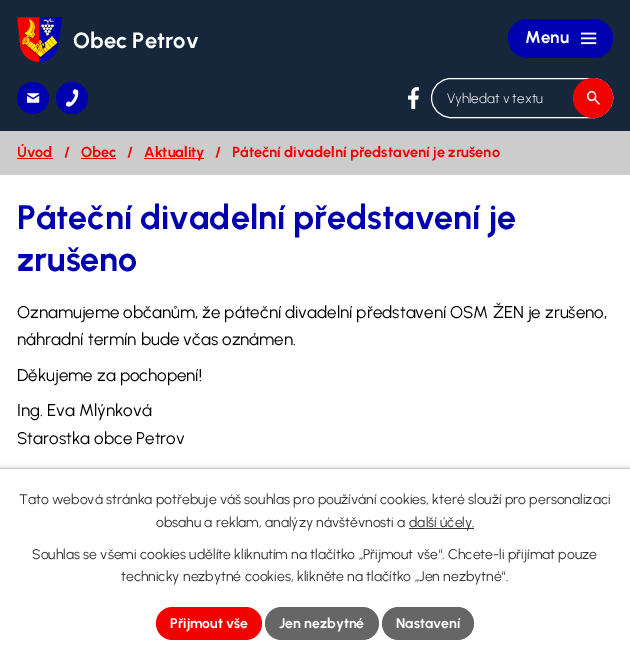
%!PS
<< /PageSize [630 658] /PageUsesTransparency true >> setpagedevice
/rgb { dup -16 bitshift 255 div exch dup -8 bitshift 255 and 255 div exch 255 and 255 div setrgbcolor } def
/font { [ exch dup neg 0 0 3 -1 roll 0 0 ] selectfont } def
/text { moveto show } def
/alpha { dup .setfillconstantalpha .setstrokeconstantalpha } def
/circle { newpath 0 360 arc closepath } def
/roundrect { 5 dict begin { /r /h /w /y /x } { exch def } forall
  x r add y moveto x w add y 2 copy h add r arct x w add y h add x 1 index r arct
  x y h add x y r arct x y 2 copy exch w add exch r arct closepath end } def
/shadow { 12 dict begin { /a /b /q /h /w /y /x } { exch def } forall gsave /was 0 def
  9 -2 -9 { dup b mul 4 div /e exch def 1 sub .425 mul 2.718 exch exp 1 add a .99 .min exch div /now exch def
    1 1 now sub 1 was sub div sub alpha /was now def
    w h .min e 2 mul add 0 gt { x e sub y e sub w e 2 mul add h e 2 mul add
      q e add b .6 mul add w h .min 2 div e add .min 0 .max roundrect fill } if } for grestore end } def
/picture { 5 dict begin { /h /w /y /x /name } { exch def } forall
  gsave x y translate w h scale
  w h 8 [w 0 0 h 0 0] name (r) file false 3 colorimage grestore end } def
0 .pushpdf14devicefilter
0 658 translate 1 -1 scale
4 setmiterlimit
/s1 { /Urbanist-Bold 22 font 16#FFFFFF rgb } def
/s2 { /Urbanist-Light 13.5 font 16#FFFFFF rgb } def
/s3 { /Urbanist-Bold 17 font 16#FFFFFF rgb } def
/s4 { /Urbanist-Bold 14.5 font 16#F30000 rgb } def
/s5 { /Urbanist-Bold 34 font 16#0000AF rgb } def
/s6 { /Urbanist-Regular 17 font 16#000000 rgb } def
/s7 { /Urbanist-Regular 14 font 16#333333 rgb } def
/s8 { /Urbanist-Bold 14 font 16#FFFFFF rgb } def
16#FFFFFF rgb
0 0 630 658 rectfill
16#16273B rgb
0 0 630 131 rectfill
(pic1.raw) 17 17 45 45 picture
s1
(Obec Petrov) 73 48 text
16#0000AF rgb
33 98 16 circle fill
(pic2.raw) 27 93 13 10 picture
72 98 16 circle fill
(pic3.raw) 66 89 13 18 picture
(pic4.raw) 408 87 11 22 picture
16#FFFFFF rgb
431.5 78.5 181 39 19.5 roundrect stroke
s2
(Vyhledat v textu) 447 103 text
16#F30000 rgb
593 98 20 circle fill
(pic5.raw) 587 91 13 14 picture
16#0000AF rgb
508 19 105 39 19.5 roundrect fill
s3
(Menu) 525 43 text
(pic6.raw) 581 32 16 13 picture
16#CCCCCC rgb
0 131 630 44 rectfill
s4
(Úvod) 17 157 text
17 158 36 1 rectfill
(/) 64 157 text
(Obec) 81 157 text
81 158 35 1 rectfill
(/) 127 157 text
144 158 60 1 rectfill
(Aktuality) 144 157 text
(/) 215 157 text
(Páteční divadelní představení je zrušeno) 232 157 text
s5
(Páteční divadelní představení je) 17 229 text
(zrušeno) 17 271 text
s6
(Oznamujeme občanům, že páteční divadelní představení OSM ŽEN je zrušeno,) 17 318 text
(náhradní termín bude včas oznámen.) 17 345 text
(Děkujeme za pochopení!) 17 381 text
(Ing. Eva Mlýnková) 17 416 text
(Starostka obce Petrov) 17 444 text
0 468 630 190 0 2.5 0.2 shadow
16#FFFFFF rgb
0 469 630 189 rectfill
16#CCCCCC rgb
0 468 630 1 rectfill
s7
(Tato webová stránka potřebuje váš souhlas pro používání cookies, které slouží pro personalizaci) 19 504 text
(obsahu a reklam, analýzy návštěvnosti a) 156 527 text
409 528 65 1 rectfill
(další účely.) 409 527 text
(Souhlas se všemi cookies udělíte kliknutím na tlačítko „Přijmout vše“. Chcete-li přijímat pouze) 32 559 text
(technicky nezbytné cookies, klikněte na tlačítko „Jen nezbytné“.) 121 581 text
16#F30000 rgb
156 607 106 33 16.5 roundrect fill
s8
(Přijmout vše) 170 628 text
16#666666 rgb
265 607 114 33 16.5 roundrect fill
s8
(Jen nezbytné) 279 628 text
16#666666 rgb
382 607 92 33 16.5 roundrect fill
s8
(Nastavení) 396 628 text
.poppdf14devicefilter showpage
